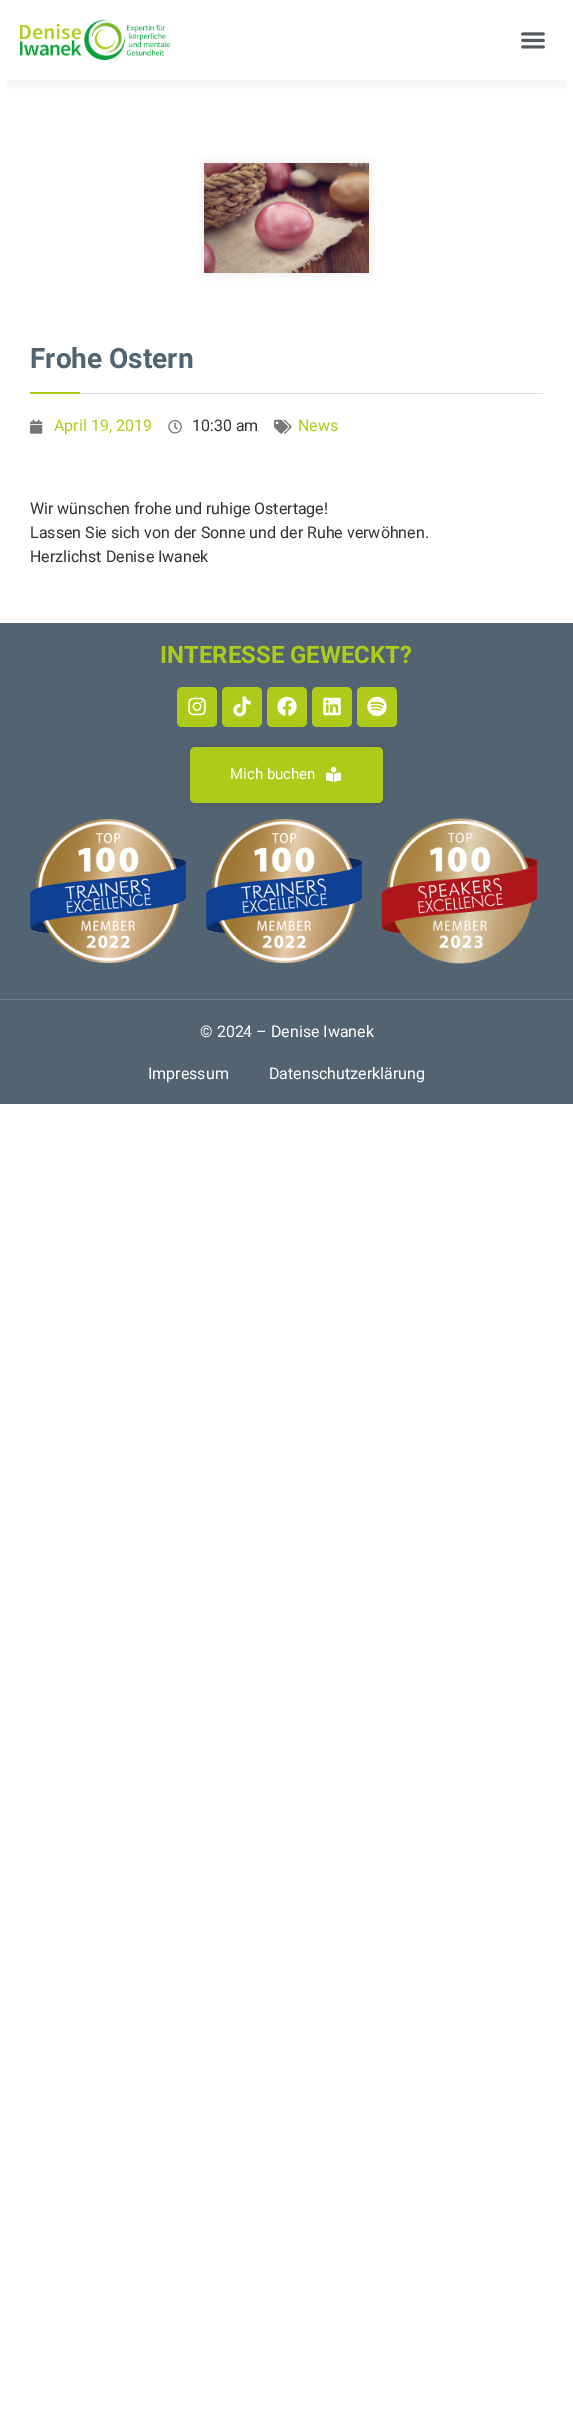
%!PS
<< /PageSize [573 2429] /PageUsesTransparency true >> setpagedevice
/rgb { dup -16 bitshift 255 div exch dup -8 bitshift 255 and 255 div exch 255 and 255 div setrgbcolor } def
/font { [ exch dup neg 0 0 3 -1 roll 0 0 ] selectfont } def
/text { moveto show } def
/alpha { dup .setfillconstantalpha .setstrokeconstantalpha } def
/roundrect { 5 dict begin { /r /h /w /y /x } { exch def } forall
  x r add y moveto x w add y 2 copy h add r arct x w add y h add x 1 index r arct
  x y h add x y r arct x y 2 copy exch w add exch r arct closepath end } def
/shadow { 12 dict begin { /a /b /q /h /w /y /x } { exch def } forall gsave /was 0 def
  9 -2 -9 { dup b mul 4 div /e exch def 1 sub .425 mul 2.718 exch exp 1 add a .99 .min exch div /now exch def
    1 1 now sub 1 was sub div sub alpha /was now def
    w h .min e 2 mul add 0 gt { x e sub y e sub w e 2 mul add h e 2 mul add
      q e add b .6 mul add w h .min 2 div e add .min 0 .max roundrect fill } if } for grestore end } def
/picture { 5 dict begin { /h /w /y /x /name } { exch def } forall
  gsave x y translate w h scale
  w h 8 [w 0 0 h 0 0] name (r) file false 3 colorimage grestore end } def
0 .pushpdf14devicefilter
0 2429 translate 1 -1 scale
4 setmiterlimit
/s1 { /Roboto-Bold 28 font 16#526371 rgb } def
/s2 { /Roboto-Regular 16 font 16#AFCB1A rgb } def
/s3 { /Roboto-Regular 16 font 16#333333 rgb } def
/s4 { /Roboto-Bold 24 font 16#AFCB1A rgb } def
/s5 { /Roboto-Regular 15 font 16#FFFFFF rgb } def
/s6 { /Roboto-Regular 16 font 16#FFFFFF rgb } def
16#FFFFFF rgb
0 0 573 2429 rectfill
gsave
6 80 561 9 rectclip
16#000000 rgb
7 12 559 66 0 13.5 0.1 shadow
grestore
(pic1.raw) 20 20 150 40 picture
(pic2.raw) 521 32 24 17 picture
16#000000 rgb
204 163 165 110 0 5 0.1 shadow
(pic3.raw) 204 163 165 110 picture
s1
(Frohe Ostern) 30 368 text
16#AFCB1A rgb
30 392 50 2 rectfill
16#DDDDDD rgb
80 393 463 1 rectfill
(pic4.raw) 30 419 13 15 picture
s2
(April 19, 2019) 54 431 text
(pic5.raw) 168 420 14 14 picture
s3
(10:30 am) 192 431 text
(pic6.raw) 274 419 18 15 picture
s2
(News) 298 431 text
s3
(Wir wünschen frohe und ruhige Ostertage!) 30 514 text
(Lassen Sie sich von der Sonne und der Ruhe verwöhnen.) 30 538 text
(Herzlichst Denise Iwanek) 30 562 text
16#526371 rgb
0 623 573 376 rectfill
s4
(INTERESSE GEWECKT?) 160 663 text
177 687 40 40 5 roundrect fill
(pic7.raw) 188 697 18 19 picture
222 687 40 40 5 roundrect fill
(pic8.raw) 233 696 18 21 picture
267 687 40 40 5 roundrect fill
(pic9.raw) 277 696 20 20 picture
312 687 40 40 5 roundrect fill
(pic10.raw) 323 697 18 19 picture
357 687 40 40 5 roundrect fill
(pic11.raw) 367 696 20 21 picture
16#000000 rgb
190 747 193 56 5 5 0.1 shadow
16#AFCB1A rgb
190 747 193 56 5 roundrect fill
s5
(Mich buchen) 230 779 text
(pic12.raw) 326 766 15 16 picture
(pic13.raw) 30 819 156 144 picture
(pic14.raw) 206 819 156 144 picture
(pic15.raw) 382 818 156 146 picture
16#526371 rgb
0 1000 573 104 rectfill
16#677D8F rgb
0 999 573 1 rectfill
s6
(© 2024 – Denise Iwanek) 200 1037 text
(Impressum) 148 1079 text
(Datenschutzerklärung) 269 1079 text
.poppdf14devicefilter showpage
